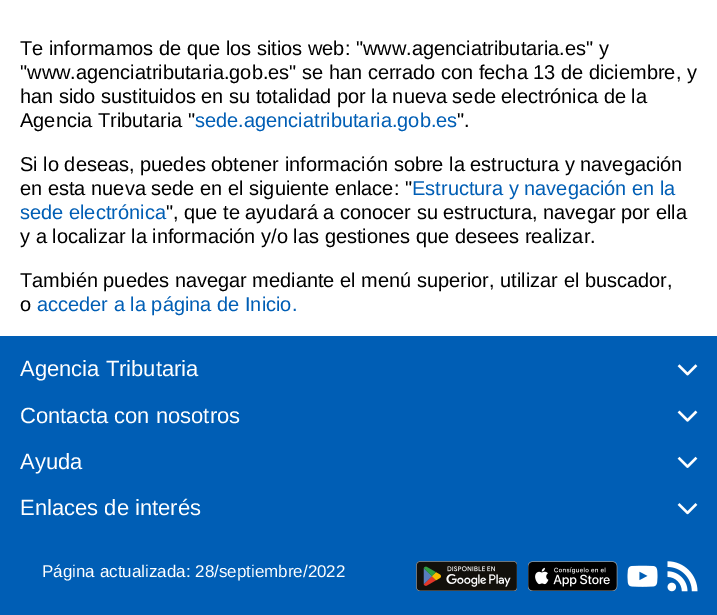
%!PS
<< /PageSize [717 615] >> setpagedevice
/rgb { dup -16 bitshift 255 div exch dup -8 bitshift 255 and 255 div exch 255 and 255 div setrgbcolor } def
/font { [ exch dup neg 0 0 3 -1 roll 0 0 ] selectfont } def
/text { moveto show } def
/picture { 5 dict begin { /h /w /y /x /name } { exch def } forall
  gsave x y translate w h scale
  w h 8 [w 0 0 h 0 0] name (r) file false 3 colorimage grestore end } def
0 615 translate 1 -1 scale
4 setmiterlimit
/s1 { /LiberationSans-Regular 20 font 16#000000 rgb } def
/s2 { /LiberationSans-Regular 20 font 16#005EB5 rgb } def
/s3 { /LiberationSans-Regular 22 font 16#FFFFFF rgb } def
/s4 { /LiberationSans-Regular 17 font 16#FFFFFF rgb } def
16#FFFFFF rgb
0 0 717 615 rectfill
s1
(Te informamos de que los sitios web: "www.agenciatributaria.es" y) 20 55 text
("www.agenciatributaria.gob.es" se han cerrado con fecha 13 de diciembre, y) 20 79 text
(han sido sustituidos en su totalidad por la nueva sede electrónica de la) 20 103 text
(Agencia Tributaria ") 20 127 text
s2
(sede.agenciatributaria.gob.es) 195 127 text
s1
(".) 457 127 text
(Si lo deseas, puedes obtener información sobre la estructura y navegación) 20 171 text
(en esta nueva sede en el siguiente enlace: ") 20 195 text
s2
(Estructura y navegación en la) 412 195 text
(sede electrónica) 20 219 text
s1
(", que te ayudará a conocer su estructura, navegar por ella) 166 219 text
(y a localizar la información y/o las gestiones que desees realizar.) 20 243 text
(También puedes navegar mediante el menú superior, utilizar el buscador,) 20 287 text
(o) 20 311 text
s2
(acceder a la página de Inicio.) 37 311 text
0 336 717 279 rectfill
s3
(Agencia Tributaria) 20 376 text
(pic1.raw) 677 364 21 12 picture
(Contacta con nosotros) 20 423 text
(pic2.raw) 677 410 21 12 picture
(Ayuda) 20 469 text
(pic3.raw) 677 456 21 12 picture
(Enlaces de interés) 20 515 text
(pic4.raw) 677 503 21 12 picture
s4
(Página actualizada: 28/septiembre/2022) 42 577 text
(pic5.raw) 416 561 101 30 picture
(pic6.raw) 528 561 90 30 picture
(pic7.raw) 627 565 31 22 picture
(pic8.raw) 667 561 31 31 picture
showpage
